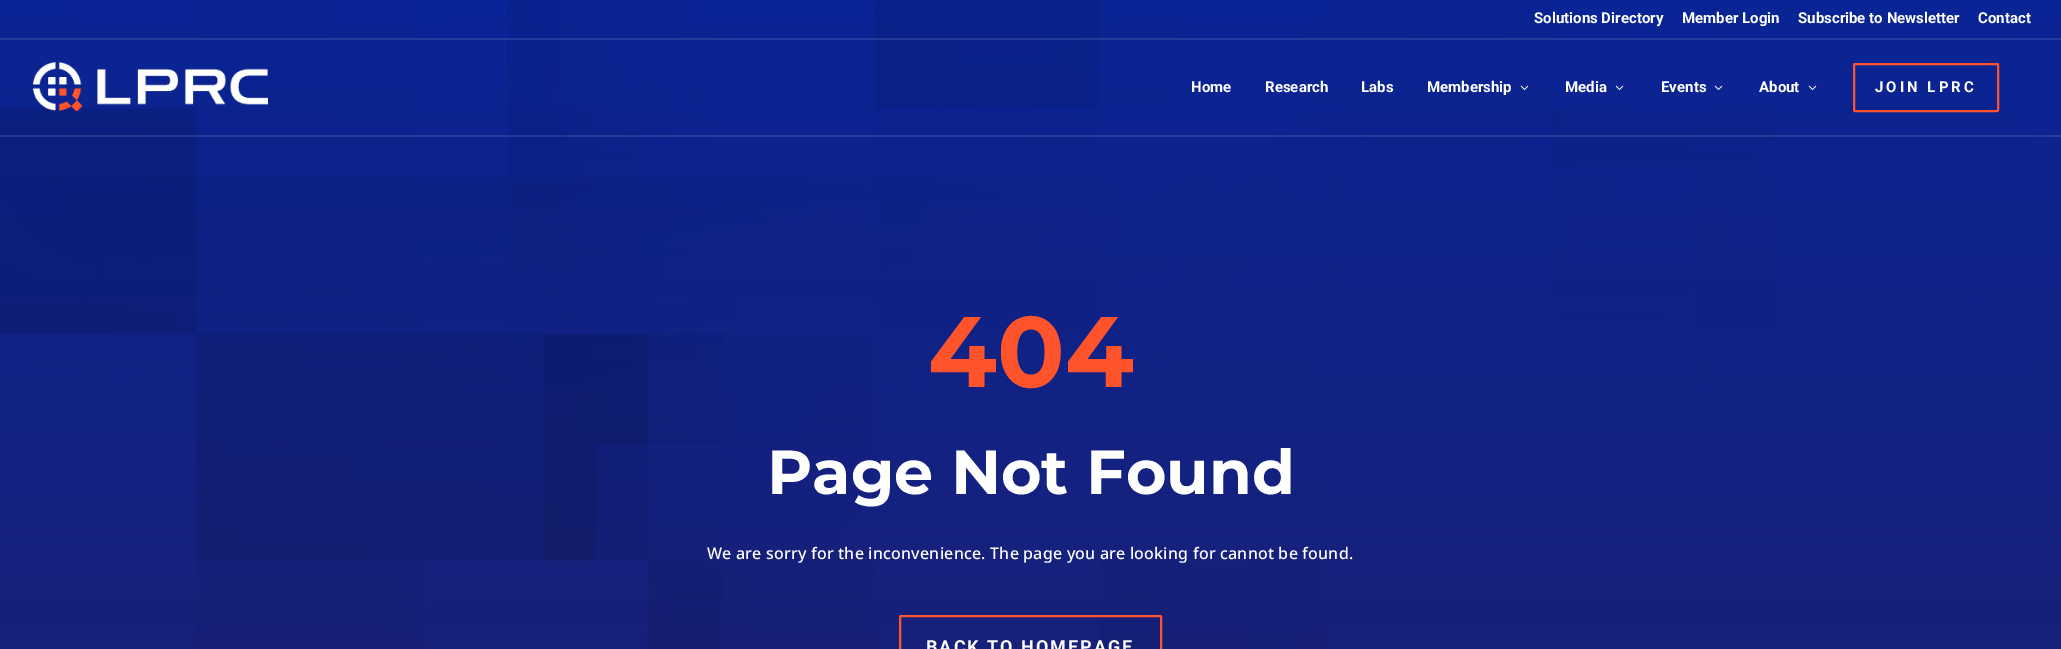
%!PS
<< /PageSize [2061 649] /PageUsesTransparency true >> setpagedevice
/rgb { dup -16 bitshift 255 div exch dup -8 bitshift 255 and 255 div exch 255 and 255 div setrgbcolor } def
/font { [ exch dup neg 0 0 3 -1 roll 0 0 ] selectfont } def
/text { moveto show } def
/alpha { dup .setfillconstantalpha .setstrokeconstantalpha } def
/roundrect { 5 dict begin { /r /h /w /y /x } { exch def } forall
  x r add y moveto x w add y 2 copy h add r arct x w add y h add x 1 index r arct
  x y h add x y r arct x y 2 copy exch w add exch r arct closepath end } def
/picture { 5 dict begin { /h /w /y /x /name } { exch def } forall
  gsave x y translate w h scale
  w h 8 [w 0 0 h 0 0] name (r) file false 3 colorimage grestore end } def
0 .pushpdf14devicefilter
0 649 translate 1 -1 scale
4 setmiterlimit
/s1 { /Roboto-Bold 15 font 16#FFFFFF rgb } def
/s2 { /Montserrat-Thin 100 font 16#FF542B rgb } def
/s3 { /Montserrat-Thin 62 font 16#FFFFFF rgb } def
16#FFFFFF rgb
0 0 2061 649 rectfill
(pic4.raw) 0 0 2061 649 picture
0.11 alpha
0 38 2061 2 rectfill
1 alpha
s1
(Solutions Directory) 1534 23 text
(Member Login) 1682 23 text
(Subscribe to Newsletter) 1798 23 text
(Contact) 1978 23 text
0.11 alpha
16#F2F2F2 rgb
0 135 2061 2 rectfill
1 alpha
(pic1.raw) 33 62 235 49 picture
s1
(Home) 1191 92 text
(Research) 1265 92 text
(Labs) 1361 92 text
(Membership) 1427 92 text
(pic2.raw) 1520 85 9 5 picture
(Media) 1565 92 text
(pic3.raw) 1615 85 9 5 picture
(Events) 1661 92 text
(pic3.raw) 1714 85 9 5 picture
(About) 1759 92 text
(pic3.raw) 1808 85 9 5 picture
16#FF542B rgb
2 setlinewidth
1854 64 144 47 1 roundrect stroke
16#FFFFFF rgb
1875 92 moveto 3 0 (JOIN LPRC) ashow
s2
(404) 928 387 text
s3
(Page Not Found) 767 494 text
/NotoSans-Medium 16 font
707 559 moveto 0.2 0 (We are sorry for the inconvenience. The page you are looking for cannot be found.) ashow
16#FF542B rgb
900 616 261 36 1 roundrect stroke
/Roboto-Bold 18 font
16#FFFFFF rgb
926 653 moveto 2 0 (BACK TO HOMEPAGE) ashow
.poppdf14devicefilter showpage
